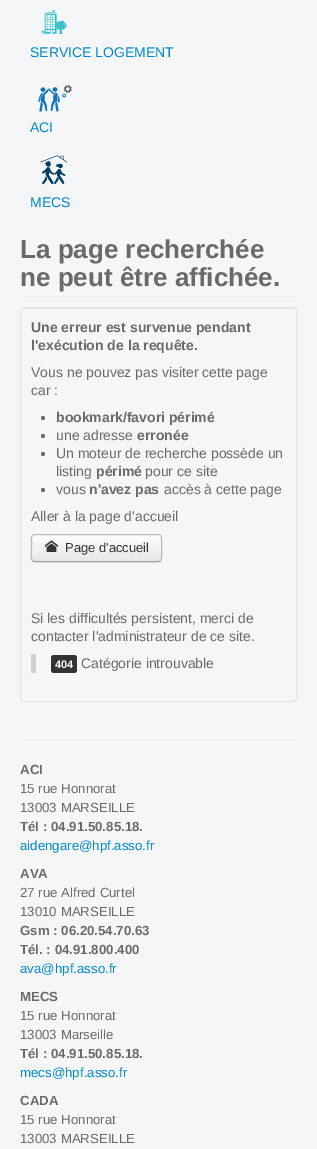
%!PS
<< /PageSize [317 1149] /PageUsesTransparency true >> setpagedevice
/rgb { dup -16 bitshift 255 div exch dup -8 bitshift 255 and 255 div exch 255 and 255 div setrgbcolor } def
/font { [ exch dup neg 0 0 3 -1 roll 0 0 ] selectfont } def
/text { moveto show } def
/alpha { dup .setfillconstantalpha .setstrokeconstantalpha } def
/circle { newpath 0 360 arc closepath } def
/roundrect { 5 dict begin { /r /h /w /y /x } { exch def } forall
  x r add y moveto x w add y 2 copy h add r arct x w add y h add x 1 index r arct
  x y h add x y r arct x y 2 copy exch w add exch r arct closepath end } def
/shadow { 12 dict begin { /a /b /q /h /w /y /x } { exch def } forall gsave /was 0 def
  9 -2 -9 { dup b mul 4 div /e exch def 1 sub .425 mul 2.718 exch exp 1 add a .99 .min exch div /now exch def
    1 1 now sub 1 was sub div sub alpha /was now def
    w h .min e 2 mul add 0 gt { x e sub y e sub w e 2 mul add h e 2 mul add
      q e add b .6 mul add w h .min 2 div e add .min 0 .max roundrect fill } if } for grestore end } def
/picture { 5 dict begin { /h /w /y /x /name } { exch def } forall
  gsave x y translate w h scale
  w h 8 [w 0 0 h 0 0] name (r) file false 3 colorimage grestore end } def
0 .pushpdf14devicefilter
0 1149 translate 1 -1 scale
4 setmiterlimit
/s1 { /LiberationSans-Regular 14 font 16#0088CC rgb } def
/s2 { /LiberationSans-Bold 26 font 16#6A6A69 rgb } def
/s3 { /LiberationSans-Bold 14 font 16#6A6A69 rgb } def
/s4 { /LiberationSans-Regular 14 font 16#6A6A69 rgb } def
/s5 { /LiberationSans-Regular 13 font 16#333333 rgb } def
/s6 { /LiberationSans-Bold 11 font 16#FFFFFF rgb } def
/s7 { /LiberationSans-Bold 13.25 font 16#6A6A69 rgb } def
/s8 { /LiberationSans-Regular 13.25 font 16#6A6A69 rgb } def
/s9 { /LiberationSans-Regular 13.25 font 16#0088CC rgb } def
16#F4F6F7 rgb
0 0 317 1149 rectfill
(pic1.raw) 41 10 26 24 picture
s1
(SERVICE LOGEMENT) 30 57 text
(pic2.raw) 38 85 34 27 picture
(ACI) 30 132 text
(pic3.raw) 40 155 27 30 picture
(MECS) 30 207 text
16#EEEEEE rgb
20 296 277 1 rectfill
s2
(La page recherchée) 20 258 text
(ne peut être affichée.) 20 286 text
16#E9E9E9 rgb
24 309 moveto 293 309 lineto 295 309 296 310 296 312 curveto 296 311 lineto 296 309 295 308 293 308 curveto 24 308 lineto 22 308 21 309 21 311 curveto 21 312 lineto 21 310 22 309 24 309 curveto closepath fill
16#E3E3E3 rgb
20.5 307.5 276 394 3.5 roundrect stroke
s3
(Une erreur est survenue pendant) 31 332 text
(l'exécution de la requête.) 31 350 text
s4
(Vous ne pouvez pas visiter cette page) 31 377 text
(car :) 31 395 text
43 418 2 circle fill
s3
(bookmark/favori périmé) 56 422 text
43 436 2 circle fill
s4
(une adresse) 56 440 text
s3
(erronée) 137 440 text
43 454 2 circle fill
s4
(Un moteur de recherche possède un) 56 458 text
(listing) 56 476 text
s3
(périmé) 96 476 text
s4
(pour ce site) 145 476 text
43 490 2 circle fill
(vous) 56 494 text
s3
(n'avez pas) 89 494 text
s4
(accès à cette page) 164 494 text
(Aller à la page d'accueil) 31 521 text
16#000000 rgb
31 535 131 28 4 1 0.05 shadow
gsave
31 534 131 28 4 roundrect clip newpath
gsave 31 535 moveto 162 535 lineto 162 561 lineto 31 561 lineto closepath clip newpath
<< /ShadingType 2 /ColorSpace /DeviceRGB /Coords [97 535 97 561] /Extend [true true] /Function << /FunctionType 2 /Domain [0 1] /C0 [1 1 1] /C1 [0.902 0.902 0.902] /N 1 >> >> shfill grestore
grestore
16#A2A2A2 rgb
160.5 560.5 moveto 160 561 159 561.5 158 561.5 curveto 35 561.5 lineto 34 561.5 33 561 32.5 560.5 curveto stroke
16#BBBBBB rgb
32.5 560.5 moveto 30.5 558 31.5 550.5 31.5 548 curveto 31.5 541.5 lineto 31.5 538.5 31 534.5 35 534.5 curveto 158 534.5 lineto 162 534.5 161.5 538.5 161.5 541.5 curveto 161.5 548 lineto 161.5 550.5 162.5 558 160.5 560.5 curveto stroke
(pic4.raw) 45 540 13 12 picture
s5
(Page d'accueil) 65 552 text
16#EEEEEE rgb
31 589 255 1 rectfill
16#FFFFFF rgb
31 590 255 1 rectfill
s4
(Si les difficultés persistent, merci de) 31 623 text
(contacter l'administrateur de ce site.) 31 641 text
16#D0D0D0 rgb
31 654 5 19 rectfill
16#333333 rgb
51 655 26 18 3 roundrect fill
s6
(404) 55 668 text
s4
(Catégorie introuvable) 81 668 text
16#EEEEEE rgb
20 740 277 1 rectfill
16#FFFFFF rgb
20 741 277 1 rectfill
s7
(ACI) 20 774 text
s8
(15 rue Honnorat) 20 793 text
(13003 MARSEILLE) 20 812 text
s7
(Tél : 04.91.50.85.18.) 20 831 text
s9
(aidengare@hpf.asso.fr) 20 850 text
s7
(AVA) 20 878 text
s8
(27 rue Alfred Curtel) 20 897 text
(13010 MARSEILLE) 20 916 text
s7
(Gsm : 06.20.54.70.63) 20 935 text
(Tél. : 04.91.800.400) 20 954 text
s9
(ava@hpf.asso.fr) 20 973 text
s7
(MECS) 20 1001 text
s8
(15 rue Honnorat) 20 1020 text
(13003 Marseille) 20 1039 text
s7
(Tél : 04.91.50.85.18.) 20 1058 text
s9
(mecs@hpf.asso.fr) 20 1077 text
s7
(CADA) 20 1105 text
s8
(15 rue Honnorat) 20 1124 text
(13003 MARSEILLE) 20 1143 text
.poppdf14devicefilter showpage
